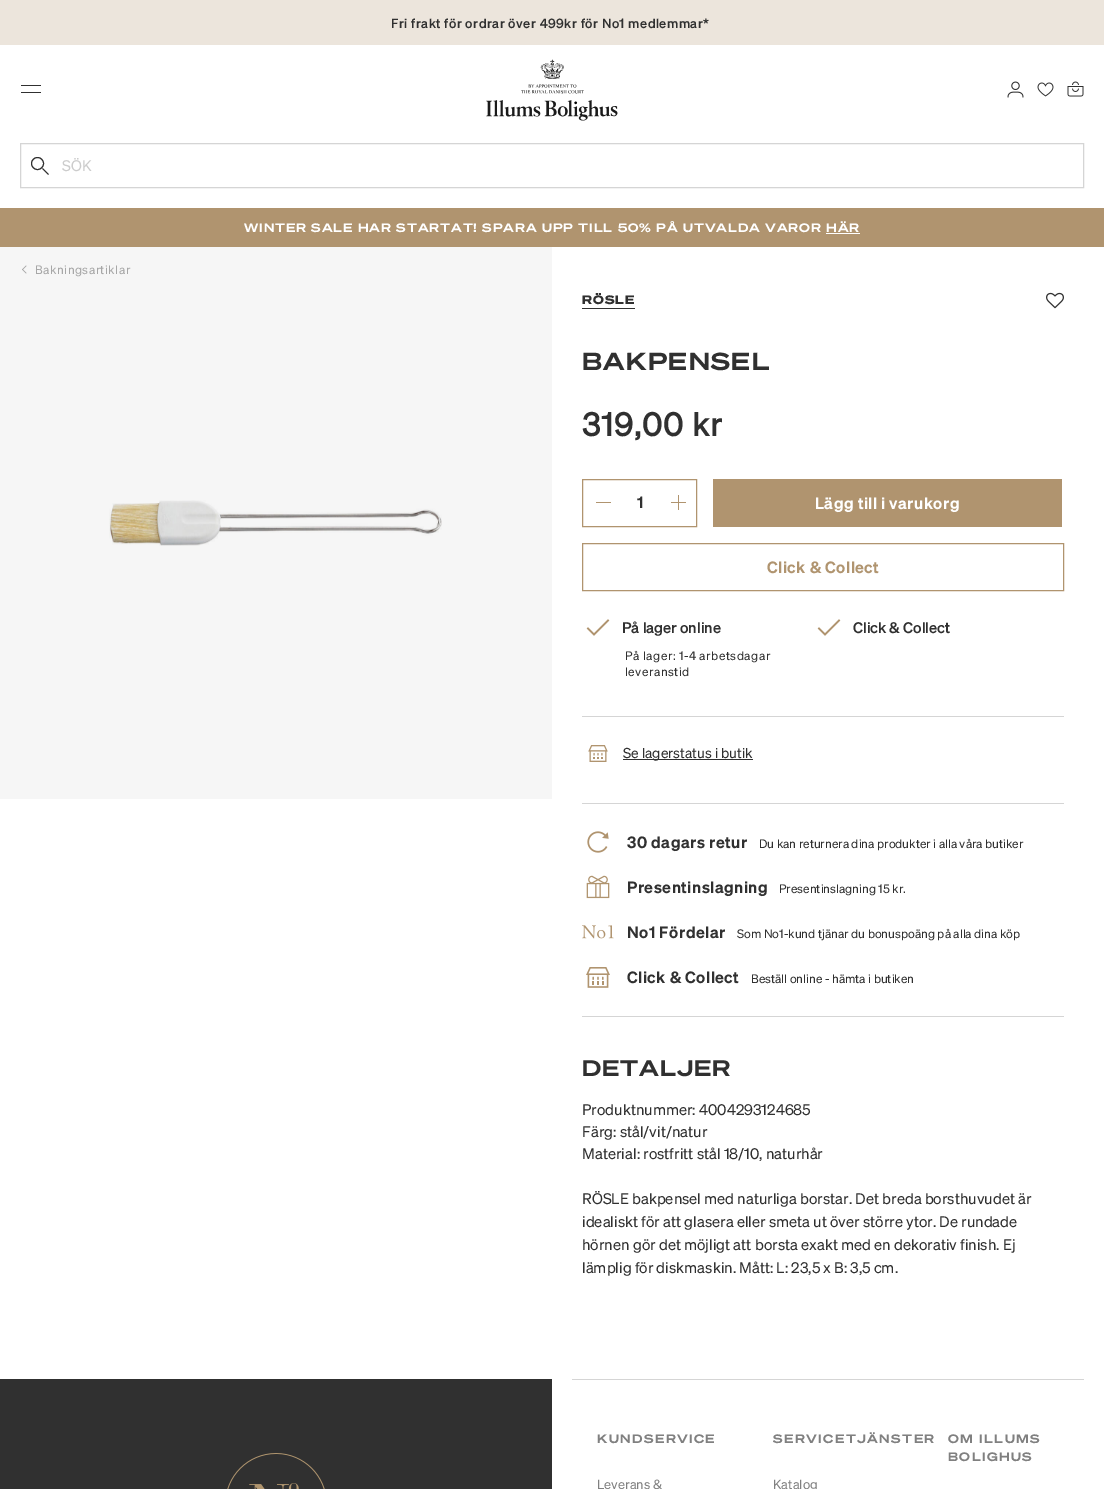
%!PS
<< /PageSize [1104 1489] >> setpagedevice
/rgb { dup -16 bitshift 255 div exch dup -8 bitshift 255 and 255 div exch 255 and 255 div setrgbcolor } def
/font { [ exch dup neg 0 0 3 -1 roll 0 0 ] selectfont } def
/text { moveto show } def
/circle { newpath 0 360 arc closepath } def
/picture { 5 dict begin { /h /w /y /x /name } { exch def } forall
  gsave x y translate w h scale
  w h 8 [w 0 0 h 0 0] name (r) file false 3 colorimage grestore end } def
0 1489 translate 1 -1 scale
4 setmiterlimit
/s1 { /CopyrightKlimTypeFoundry-Regular 15 font 16#CCCCCC rgb } def
/s2 { /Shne-SemiBold 16 font 16#303030 rgb } def
/s3 { /Shne-Medium 15 font 16#303030 rgb } def
/s4 { /CopyrightKlimTypeFoundry-Regular 14 font 16#303030 rgb } def
/s5 { /CopyrightKlimTypeFoundry-Regular 12 font 16#303030 rgb } def
/s6 { /CopyrightKlimTypeFoundry-Regular 15 font 16#303030 rgb } def
/s7 { /CopyrightKlimTypeFoundry-Regular 13 font 16#808080 rgb } def
16#FFFFFF rgb
0 0 1104 1489 rectfill
16#F6F6F6 rgb
0 247 552 552 rectfill
16#ECE5DC rgb
0 0 1104 45 rectfill
/Shne-Medium 13 font
16#303030 rgb
391 28 moveto 0.5 0 (Fri frakt för ordrar över 499kr för No1 medlemmar*) ashow
(pic1.raw) 486 59 132 62 picture
21 85 20 1 rectfill
21 92 20 1 rectfill
(pic2.raw) 1007 81 17 17 picture
(pic3.raw) 1037 82 17 15 picture
(pic4.raw) 1067 81 17 16 picture
16#D5D5D5 rgb
20.5 143.5 1063 44 rectstroke
16#303030 rgb
37.5 163.5 6 circle stroke
42.5 168.5 moveto 48.5 174.5 lineto stroke
s1
(SÖK) 62 171 text
16#B0946F rgb
0 208 1104 39 rectfill
/CopyrightKlimTypeFoundry-Bold 12 font
16#FFFFFF rgb
244 232 moveto 1 0 (WINTER SALE HAR STARTAT! SPARA UPP TILL 50% PÅ UTVALDA VAROR HÄR) ashow
826 233 34 1 rectfill
16#A7A7A7 rgb
26 273.5 moveto 22 269.5 lineto 22.5 269 lineto 26.5 273 lineto closepath fill
22.5 270 moveto 22 269.5 lineto 26 265.5 lineto 26.5 266 lineto closepath fill
/CopyrightKlimTypeFoundry-Regular 12 font
35 274 moveto 0.5 0 (Bakningsartiklar) ashow
(pic5.raw) 109 500 333 46 picture
/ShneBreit-ExtraBold 12 font
16#303030 rgb
582 304 moveto 1 0 (RÖSLE) ashow
582 308 53 1 rectfill
(pic6.raw) 1046 292 18 17 picture
/CopyrightKlimTypeFoundry-Bold 24 font
582 370 moveto 1.5 0 (BAKPENSEL) ashow
/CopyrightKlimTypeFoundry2-Bold 32 font
582 436 moveto 1 0 (319,00 kr) ashow
16#B0946F rgb
582.5 479.5 114 47 rectstroke
596 502 15 1 rectfill
s2
(1) 637 508 text
16#B0946F rgb
671 502 15 1 rectfill
678 495 1 15 rectfill
713 479 349 48 rectfill
16#FFFFFF rgb
815 509 moveto 0.5 0 (Lägg till i varukorg) ashow
16#B0946F rgb
582.5 543.5 481 47 rectstroke
767 573 moveto 0.5 0 (Click & Collect) ashow
1.7 setlinewidth
2 setlinecap
608 620.5 moveto 594 634.5 lineto 588 628.5 lineto stroke
s3
(På lager online) 622 633 text
/CopyrightKlimTypeFoundry-Regular 12 font
625 660 moveto 0.5 0 (På lager: 1-4 arbetsdagar) ashow
625 676 moveto 0.5 0 (leveranstid) ashow
16#B0946F rgb
839 620.5 moveto 825 634.5 lineto 819 628.5 lineto stroke
s3
(Click & Collect) 853 633 text
16#D5D5D5 rgb
582 716 482 1 rectfill
(pic7.raw) 588 745 20 17 picture
16#303030 rgb
623 759 130 1 rectfill
s4
(Se lagerstatus i butik) 623 758 text
16#D5D5D5 rgb
582 803 482 1 rectfill
(pic8.raw) 587 831 22 22 picture
/Shne-SemiBold 16 font
16#303030 rgb
627 848 moveto 0.5 0 (30 dagars retur) ashow
s5
(Du kan returnera dina produkter i alla våra butiker) 759 848 text
(pic9.raw) 586 875 24 24 picture
/Shne-SemiBold 16 font
627 893 moveto 0.5 0 (Presentinslagning) ashow
s5
(Presentinslagning 15 kr.) 779 893 text
(pic10.raw) 582 925 32 14 picture
/Shne-SemiBold 16 font
627 938 moveto 0.5 0 (No1 Fördelar) ashow
s5
(Som No1-kund tjänar du bonuspoäng på alla dina köp) 737 938 text
(pic11.raw) 586 967 24 21 picture
/Shne-SemiBold 16 font
627 983 moveto 0.5 0 (Click & Collect) ashow
s5
(Beställ online - hämta i butiken) 751 983 text
16#D5D5D5 rgb
582 1016 482 1 rectfill
/CopyrightKlimTypeFoundry-Bold 22 font
16#303030 rgb
582 1076 moveto 1 0 (DETALJER) ashow
s6
(Produktnummer: 4004293124685) 582 1115 text
(Färg: stål/vit/natur) 582 1137 text
(Material: rostfritt stål 18/10, naturhår) 582 1159 text
(RÖSLE bakpensel med naturliga borstar. Det breda borsthuvudet är) 582 1204 text
(idealiskt för att glasera eller smeta ut över större ytor. De rundade) 582 1227 text
(hörnen gör det möjligt att borsta exakt med en dekorativ finish. Ej) 582 1250 text
(lämplig för diskmaskin. Mått: L: 23,5 x B: 3,5 cm.) 582 1273 text
0 1379 552 110 rectfill
(pic12.raw) 227 1453 98 36 picture
16#D5D5D5 rgb
572 1379 512 1 rectfill
/CopyrightKlimTypeFoundry-Bold 12 font
16#808080 rgb
597 1443 moveto 1.5 0 (KUNDSERVICE) ashow
s7
(Leverans &) 597 1489 text
/CopyrightKlimTypeFoundry-Bold 12 font
773 1443 moveto 1.5 0 (SERVICETJÄNSTER) ashow
s7
(Katalog) 773 1489 text
/CopyrightKlimTypeFoundry-Bold 12 font
948 1443 moveto 1.5 0 (OM ILLUMS) ashow
948 1461 moveto 1.5 0 (BOLIGHUS) ashow
showpage
